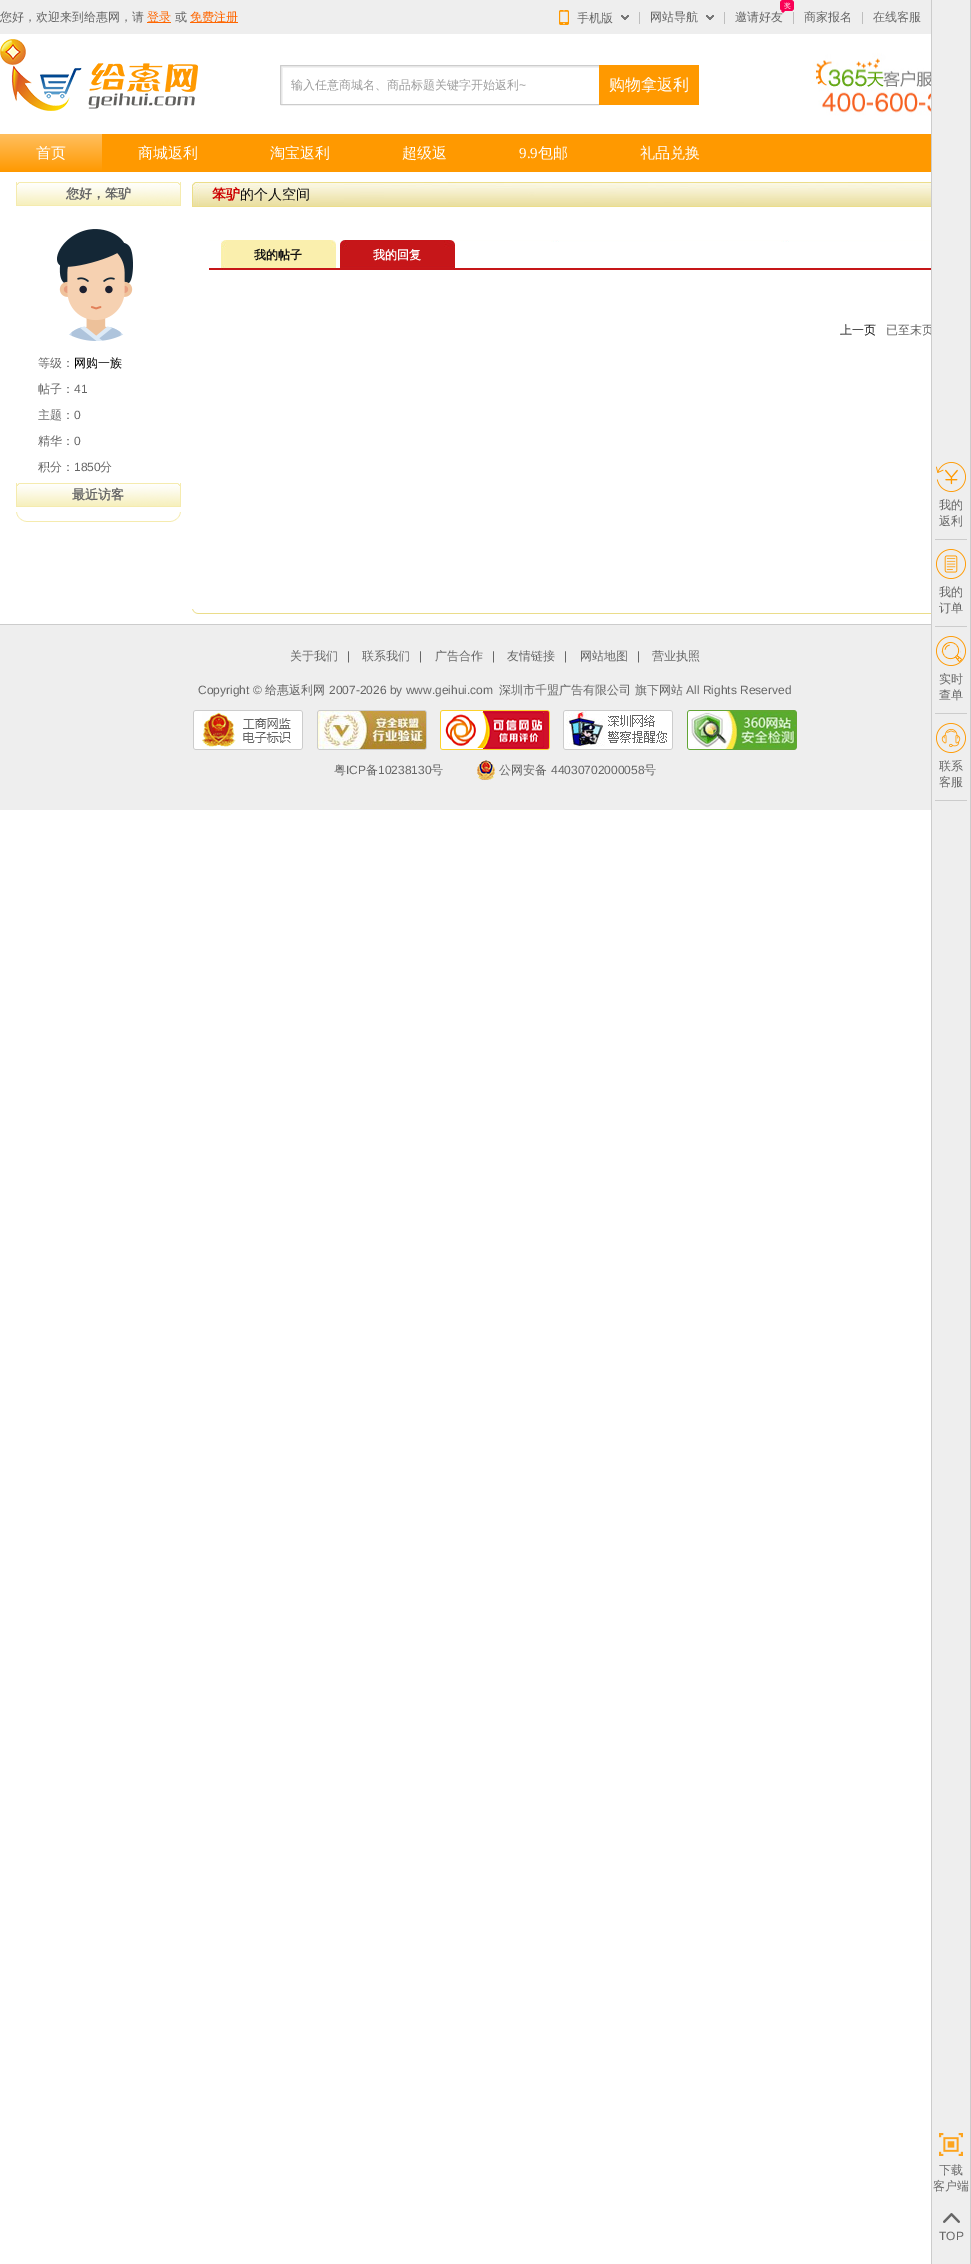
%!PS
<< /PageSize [971 2264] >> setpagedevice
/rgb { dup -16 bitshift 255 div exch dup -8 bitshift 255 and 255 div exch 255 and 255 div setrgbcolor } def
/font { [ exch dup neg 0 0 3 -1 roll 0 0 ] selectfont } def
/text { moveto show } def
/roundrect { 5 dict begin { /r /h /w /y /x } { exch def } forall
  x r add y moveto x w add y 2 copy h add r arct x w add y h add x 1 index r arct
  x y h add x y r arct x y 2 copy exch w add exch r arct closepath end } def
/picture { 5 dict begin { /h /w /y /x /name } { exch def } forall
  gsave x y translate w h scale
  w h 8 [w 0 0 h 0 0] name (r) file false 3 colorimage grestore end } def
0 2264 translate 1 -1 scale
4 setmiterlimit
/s1 { /WenQuanYiZenHei-Medium 12 font 16#666666 rgb } def
/s2 { /WenQuanYiZenHei-Medium 12 font 16#FF6600 rgb } def
/s3 { /WenQuanYiZenHei-Medium 7 font 16#FFFFFF rgb } def
/s4 { /WenQuanYiZenHei-Medium 12 font 16#9C9C9C rgb } def
/s5 { /LiberationSans-Regular 12 font 16#9C9C9C rgb } def
/s6 { /WenQuanYiZenHei-Medium 16 font 16#FFFFFF rgb } def
/s7 { /WenQuanYiZenHei-Medium 15 font 16#FFFFFF rgb } def
/s8 { /LiberationSerif-Regular 15 font 16#FFFFFF rgb } def
/s9 { /WenQuanYiZenHei-Bold 13 font 16#666666 rgb } def
/s10 { /WenQuanYiZenHei-Medium 12 font 16#000000 rgb } def
/s11 { /LiberationSans-Regular 12 font 16#666666 rgb } def
/s12 { /WenQuanYiZenHei-Bold 14 font 16#CC0000 rgb } def
/s13 { /WenQuanYiZenHei-Medium 14 font 16#111111 rgb } def
/s14 { /WenQuanYiZenHei-Bold 12 font 16#111111 rgb } def
/s15 { /WenQuanYiZenHei-Bold 12 font 16#FFFFFF rgb } def
/s16 { /WenQuanYiZenHei-Medium 12 font 16#111111 rgb } def
16#FFFFFF rgb
0 0 971 2264 rectfill
16#EEEEEE rgb
0 0 931 34 rectfill
s1
(您好，欢迎来到给惠网，请) 0 21 text
16#FF6600 rgb
147 22 24 1 rectfill
(登录) 147 21 text
s1
(或) 175 21 text
16#FF6600 rgb
190 22 48 1 rectfill
(免费注册) 190 21 text
(pic1.raw) 559 10 10 15 picture
s1
(手机版) 577 22 text
(pic2.raw) 621 15 8 5 picture
16#BEBEBE rgb
639 12 1 12 rectfill
s1
(网站导航) 650 21 text
(pic2.raw) 706 15 8 5 picture
16#BEBEBE rgb
724 12 1 12 rectfill
16#F90056 rgb
780 0 14 11 3 roundrect fill
s3
(奖) 784 8 text
s1
(邀请好友) 735 21 text
16#F90056 rgb
781 11 moveto 785 11 lineto 783 13 lineto closepath fill
16#BEBEBE rgb
793 12 1 12 rectfill
s1
(商家报名) 804 21 text
16#BEBEBE rgb
862 12 1 12 rectfill
s1
(在线客服) 873 21 text
(pic3.raw) 0 39 198 72 picture
gsave
281 66 318 38 rectclip
16#F2F2F2 rgb
182 -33 moveto 698 -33 lineto 698 203 lineto 182 203 lineto closepath 283 68 moveto 601 68 lineto 601 106 lineto 283 106 lineto closepath eofill
grestore
16#CCCCCC rgb
280.5 65.5 319 39 0.5 roundrect stroke
s4
(输入任意商城名、商品标题关键字开始返利) 291 89 text
s5
(~) 519 89 text
16#FF9900 rgb
599 65 100 40 rectfill
s6
(购物拿返利) 609 90 text
(pic4.raw) 810 45 121 80 picture
16#FF9900 rgb
102 134 829 38 rectfill
gsave 0 134 moveto 102 134 lineto 102 172 lineto 0 172 lineto closepath clip newpath
<< /ShadingType 2 /ColorSpace /DeviceRGB /Coords [51 134 51 172] /Extend [true true] /Function << /FunctionType 2 /Domain [0 1] /C0 [1 0.749 0.373] /C1 [1 0.6 0] /N 1 >> >> shfill grestore
s7
(首页) 36 158 text
(商城返利) 138 158 text
(淘宝返利) 270 158 text
(超级返) 402 158 text
s8
(9.9) 519 158 text
s7
(包邮) 538 158 text
(礼品兑换) 640 158 text
(pic5.raw) 16 512 165 10 picture
(pic6.raw) 16 182 165 24 picture
s9
(您好，笨驴) 66 198 text
(pic7.raw) 57 229 76 112 picture
s1
(等级：) 38 367 text
s10
(网购一族) 74 367 text
s1
(帖子：) 38 393 text
s11
(41) 74 393 text
s1
(主题：) 38 419 text
s11
(0) 74 419 text
s1
(精华：) 38 445 text
s11
(0) 74 445 text
s1
(积分：) 38 471 text
s11
(1850) 74 471 text
s1
(分) 100 471 text
(pic6.raw) 16 483 165 24 picture
s9
(最近访客) 72 499 text
(pic8.raw) 192 609 739 5 picture
(pic9.raw) 192 182 739 25 picture
s12
(笨驴) 212 199 text
s13
(的个人空间) 240 199 text
(pic10.raw) 209 240 722 30 picture
(pic11.raw) 221 240 115 30 picture
s14
(我的帖子) 254 259 text
(pic12.raw) 340 240 115 30 picture
s15
(我的回复) 373 259 text
s16
(上一页) 840 334 text
s1
(已至末页) 886 334 text
16#EEEEEE rgb
0 625 931 185 rectfill
16#CCCCCC rgb
0 624 931 1 rectfill
s1
(关于我们) 290 660 text
s11
(|) 347 660 text
s1
(联系我们) 362 660 text
s11
(|) 419 660 text
s1
(广告合作) 435 660 text
s11
(|) 492 660 text
s1
(友情链接) 507 660 text
s11
(|) 564 660 text
s1
(网站地图) 580 660 text
s11
(|) 637 660 text
s1
(营业执照) 652 660 text
s11
(Copyright ©) 198 694 text
s1
(给惠返利网) 265 694 text
s11
(2007-2026 by www.geihui.com) 329 694 text
s1
(深圳市千盟广告有限公司 旗下网站) 499 694 text
s11
(All Rights Reserved) 686 694 text
(pic13.raw) 193 710 110 40 picture
(pic14.raw) 317 710 110 40 picture
(pic15.raw) 440 710 110 40 picture
(pic16.raw) 563 710 110 40 picture
(pic17.raw) 687 710 110 40 picture
s1
(粤) 334 774 text
s11
(ICP) 346 774 text
s1
(备) 366 774 text
s11
(10238130) 378 774 text
s1
(号) 431 774 text
(pic18.raw) 477 760 18 20 picture
(公网安备) 499 774 text
s11
(44030702000058) 551 774 text
s1
(号) 644 774 text
16#EEEEEE rgb
932 0 38 2264 rectfill
16#CCCCCC rgb
970 0 1 2264 rectfill
931 0 1 2264 rectfill
(pic19.raw) 936 462 30 30 picture
935 539 32 1 rectfill
s1
(我的) 939 509 text
(返利) 939 525 text
(pic20.raw) 936 549 30 30 picture
16#CCCCCC rgb
935 626 32 1 rectfill
s1
(我的) 939 596 text
(订单) 939 612 text
(pic21.raw) 936 636 30 30 picture
16#CCCCCC rgb
935 713 32 1 rectfill
s1
(实时) 939 683 text
(查单) 939 699 text
(pic22.raw) 936 723 30 30 picture
16#CCCCCC rgb
935 800 32 1 rectfill
s1
(联系) 939 770 text
(客服) 939 786 text
(pic23.raw) 939 2133 24 23 picture
(下载) 939 2174 text
(客户端) 933 2190 text
(pic24.raw) 943 2213 17 10 picture
s11
(TOP) 939 2240 text
showpage
